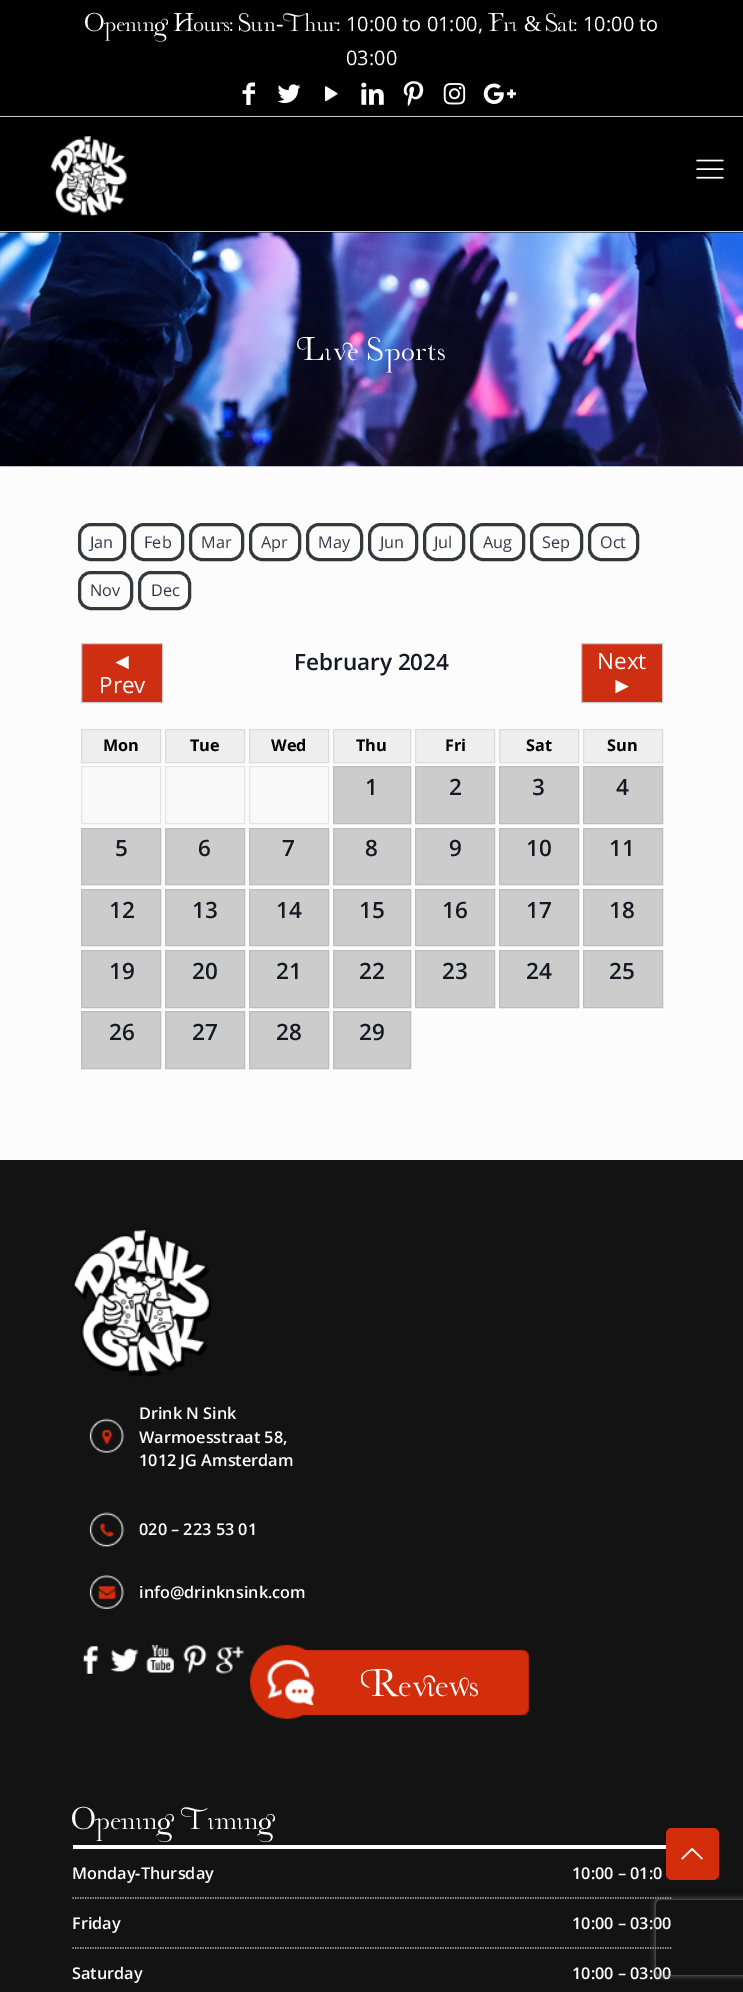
%!PS
<< /PageSize [743 1992] /PageUsesTransparency true >> setpagedevice
/rgb { dup -16 bitshift 255 div exch dup -8 bitshift 255 and 255 div exch 255 and 255 div setrgbcolor } def
/font { [ exch dup neg 0 0 3 -1 roll 0 0 ] selectfont } def
/text { moveto show } def
/alpha { dup .setfillconstantalpha .setstrokeconstantalpha } def
/roundrect { 5 dict begin { /r /h /w /y /x } { exch def } forall
  x r add y moveto x w add y 2 copy h add r arct x w add y h add x 1 index r arct
  x y h add x y r arct x y 2 copy exch w add exch r arct closepath end } def
/shadow { 12 dict begin { /a /b /q /h /w /y /x } { exch def } forall gsave /was 0 def
  9 -2 -9 { dup b mul 4 div /e exch def 1 sub .425 mul 2.718 exch exp 1 add a .99 .min exch div /now exch def
    1 1 now sub 1 was sub div sub alpha /was now def
    w h .min e 2 mul add 0 gt { x e sub y e sub w e 2 mul add h e 2 mul add
      q e add b .6 mul add w h .min 2 div e add .min 0 .max roundrect fill } if } for grestore end } def
/picture { 5 dict begin { /h /w /y /x /name } { exch def } forall
  gsave x y translate w h scale
  w h 8 [w 0 0 h 0 0] name (r) file false 3 colorimage grestore end } def
0 .pushpdf14devicefilter
0 1992 translate 1 -1 scale
4 setmiterlimit
/s1 { /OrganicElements-Regular 22.5 font 16#FFFFFF rgb } def
/s2 { /LiberationSerif-Regular 22.5 font 16#FFFFFF rgb } def
/s3 { /OpenSans-Regular 20 font 16#FFFFFF rgb } def
/s4 { /OpenSans-Regular 16.25 font 16#343848 rgb } def
/s5 { /LiberationSans-Regular 22.5 font 16#FFFFFF rgb } def
/s6 { /OpenSans-Regular 22.5 font 16#FFFFFF rgb } def
/s7 { /OpenSans-SemiBold 22.5 font 16#161922 rgb } def
/s8 { /OpenSans-Bold 16.25 font 16#000000 rgb } def
/s9 { /OpenSans-SemiBold 16.25 font 16#FFFFFF rgb } def
/s10 { /OrganicElements-Regular 34 font 16#FFFFFF rgb } def
/s11 { /OrganicElements-Regular 27.5 font 16#FFFFFF rgb } def
16#FCFCFC rgb
0 0 743 1992 rectfill
16#000000 rgb
0 0 743 116 rectfill
s1
(Opening Hours: Sun) 85 31 text
s2
(-) 276 31 text
s1
(Thur:) 283 31 text
s3
(10:00 to 01:00,) 346 31 text
s1
(Fri) 488 31 text
s2
(&) 524 31 text
s1
(Sat:) 546 31 text
s3
(10:00 to) 583 31 text
(03:00) 346 65 text
(pic1.raw) 242 82 13 23 picture
(pic2.raw) 277 84 24 20 picture
(pic3.raw) 325 86 13 16 picture
(pic4.raw) 361 82 23 23 picture
(pic5.raw) 403 81 21 26 picture
(pic6.raw) 443 83 23 22 picture
(pic7.raw) 483 83 33 21 picture
16#000000 rgb
0 117 743 116 rectfill
16#CCCCCC rgb
0 116 743 1 rectfill
0 231 743 1 rectfill
(pic8.raw) 50 135 78 82 picture
(pic9.raw) 696 159 28 20 picture
(pic10.raw) 0 232 743 235 picture
/OrganicElements-Regular 28.75 font
16#FFFFFF rgb
297 360 moveto 1.25 0 (Live Sports) ashow
16#343838 rgb
3 setlinewidth
79.5 524.5 45 35 11.5 roundrect stroke
s4
(Jan) 90 548 text
16#343838 rgb
132.5 524.5 50 35 11.5 roundrect stroke
s4
(Feb) 144 548 text
16#343838 rgb
190.5 524.5 52 35 11.5 roundrect stroke
s4
(Mar) 201 548 text
16#343838 rgb
250.5 524.5 49 35 11.5 roundrect stroke
s4
(Apr) 261 548 text
16#343838 rgb
307.5 524.5 54 35 11.5 roundrect stroke
s4
(May) 318 548 text
16#343838 rgb
369.5 524.5 47 35 11.5 roundrect stroke
s4
(Jun) 380 548 text
16#343838 rgb
424.5 524.5 39 35 11.5 roundrect stroke
s4
(Jul) 434 548 text
16#343838 rgb
471.5 524.5 52 35 11.5 roundrect stroke
s4
(Aug) 483 548 text
16#343838 rgb
531.5 524.5 50 35 11.5 roundrect stroke
s4
(Sep) 542 548 text
16#343838 rgb
589.5 524.5 48 35 11.5 roundrect stroke
s4
(Oct) 600 548 text
16#343838 rgb
79.5 572.5 52 36 11.5 roundrect stroke
s4
(Nov) 90 596 text
16#343838 rgb
139.5 572.5 50 36 11.5 roundrect stroke
s4
(Dec) 151 596 text
16#CE2F12 rgb
81.5 643.5 moveto 162.5 643.5 lineto 162.5 702.5 lineto 81.5 702.5 lineto closepath gsave fill grestore
16#CCCCCC rgb
1 setlinewidth
stroke
s5
(◄) 111 669 text
s6
(Prev) 99 693 text
s7
(February 2024) 294 670 text
16#CE2F12 rgb
581.5 643.5 moveto 662.5 643.5 lineto 662.5 702.5 lineto 581.5 702.5 lineto closepath gsave fill grestore
16#CCCCCC rgb
stroke
s6
(Next) 597 669 text
s5
(►) 611 693 text
16#EEEEEE rgb
81.5 729.5 moveto 160.5 729.5 lineto 160.5 762.5 lineto 81.5 762.5 lineto closepath gsave fill grestore
16#DBDBDB rgb
stroke
s8
(Mon) 103 751 text
16#EEEEEE rgb
165.5 729.5 moveto 244.5 729.5 lineto 244.5 762.5 lineto 165.5 762.5 lineto closepath gsave fill grestore
16#DBDBDB rgb
stroke
s8
(Tue) 190 751 text
16#EEEEEE rgb
249.5 729.5 moveto 328.5 729.5 lineto 328.5 762.5 lineto 249.5 762.5 lineto closepath gsave fill grestore
16#DBDBDB rgb
stroke
s8
(Wed) 271 751 text
16#EEEEEE rgb
333.5 729.5 moveto 410.5 729.5 lineto 410.5 762.5 lineto 333.5 762.5 lineto closepath gsave fill grestore
16#DBDBDB rgb
stroke
s8
(Thu) 356 751 text
16#EEEEEE rgb
415.5 729.5 moveto 494.5 729.5 lineto 494.5 762.5 lineto 415.5 762.5 lineto closepath gsave fill grestore
16#DBDBDB rgb
stroke
s8
(Fri) 445 751 text
16#EEEEEE rgb
499.5 729.5 moveto 578.5 729.5 lineto 578.5 762.5 lineto 499.5 762.5 lineto closepath gsave fill grestore
16#DBDBDB rgb
stroke
s8
(Sat) 526 751 text
16#EEEEEE rgb
583.5 729.5 moveto 662.5 729.5 lineto 662.5 762.5 lineto 583.5 762.5 lineto closepath gsave fill grestore
16#DBDBDB rgb
stroke
s8
(Sun) 607 751 text
16#F9F9F9 rgb
81.5 766.5 moveto 160.5 766.5 lineto 160.5 823.5 lineto 81.5 823.5 lineto closepath gsave fill grestore
16#E5E5E5 rgb
stroke
16#F9F9F9 rgb
165.5 766.5 moveto 244.5 766.5 lineto 244.5 823.5 lineto 165.5 823.5 lineto closepath gsave fill grestore
16#E5E5E5 rgb
stroke
16#F9F9F9 rgb
249.5 766.5 moveto 328.5 766.5 lineto 328.5 823.5 lineto 249.5 823.5 lineto closepath gsave fill grestore
16#E5E5E5 rgb
stroke
16#CCCCCC rgb
333.5 766.5 moveto 410.5 766.5 lineto 410.5 823.5 lineto 333.5 823.5 lineto closepath gsave fill grestore
16#BCBCBC rgb
stroke
s7
(1) 365 795 text
16#CCCCCC rgb
415.5 766.5 moveto 494.5 766.5 lineto 494.5 823.5 lineto 415.5 823.5 lineto closepath gsave fill grestore
16#BCBCBC rgb
stroke
s7
(2) 449 795 text
16#CCCCCC rgb
499.5 766.5 moveto 578.5 766.5 lineto 578.5 823.5 lineto 499.5 823.5 lineto closepath gsave fill grestore
16#BCBCBC rgb
stroke
s7
(3) 532 795 text
16#CCCCCC rgb
583.5 766.5 moveto 662.5 766.5 lineto 662.5 823.5 lineto 583.5 823.5 lineto closepath gsave fill grestore
16#BCBCBC rgb
stroke
s7
(4) 616 795 text
16#CCCCCC rgb
81.5 828.5 moveto 160.5 828.5 lineto 160.5 884.5 lineto 81.5 884.5 lineto closepath gsave fill grestore
16#BCBCBC rgb
stroke
s7
(5) 115 856 text
16#CCCCCC rgb
165.5 828.5 moveto 244.5 828.5 lineto 244.5 884.5 lineto 165.5 884.5 lineto closepath gsave fill grestore
16#BCBCBC rgb
stroke
s7
(6) 198 856 text
16#CCCCCC rgb
249.5 828.5 moveto 328.5 828.5 lineto 328.5 884.5 lineto 249.5 884.5 lineto closepath gsave fill grestore
16#BCBCBC rgb
stroke
s7
(7) 282 856 text
16#CCCCCC rgb
333.5 828.5 moveto 410.5 828.5 lineto 410.5 884.5 lineto 333.5 884.5 lineto closepath gsave fill grestore
16#BCBCBC rgb
stroke
s7
(8) 365 856 text
16#CCCCCC rgb
415.5 828.5 moveto 494.5 828.5 lineto 494.5 884.5 lineto 415.5 884.5 lineto closepath gsave fill grestore
16#BCBCBC rgb
stroke
s7
(9) 449 856 text
16#CCCCCC rgb
499.5 828.5 moveto 578.5 828.5 lineto 578.5 884.5 lineto 499.5 884.5 lineto closepath gsave fill grestore
16#BCBCBC rgb
stroke
s7
(10) 526 856 text
16#CCCCCC rgb
583.5 828.5 moveto 662.5 828.5 lineto 662.5 884.5 lineto 583.5 884.5 lineto closepath gsave fill grestore
16#BCBCBC rgb
stroke
s7
(11) 609 856 text
16#CCCCCC rgb
81.5 889.5 moveto 160.5 889.5 lineto 160.5 945.5 lineto 81.5 945.5 lineto closepath gsave fill grestore
16#BCBCBC rgb
stroke
s7
(12) 109 918 text
16#CCCCCC rgb
165.5 889.5 moveto 244.5 889.5 lineto 244.5 945.5 lineto 165.5 945.5 lineto closepath gsave fill grestore
16#BCBCBC rgb
stroke
s7
(13) 192 918 text
16#CCCCCC rgb
249.5 889.5 moveto 328.5 889.5 lineto 328.5 945.5 lineto 249.5 945.5 lineto closepath gsave fill grestore
16#BCBCBC rgb
stroke
s7
(14) 276 918 text
16#CCCCCC rgb
333.5 889.5 moveto 410.5 889.5 lineto 410.5 945.5 lineto 333.5 945.5 lineto closepath gsave fill grestore
16#BCBCBC rgb
stroke
s7
(15) 359 918 text
16#CCCCCC rgb
415.5 889.5 moveto 494.5 889.5 lineto 494.5 945.5 lineto 415.5 945.5 lineto closepath gsave fill grestore
16#BCBCBC rgb
stroke
s7
(16) 442 918 text
16#CCCCCC rgb
499.5 889.5 moveto 578.5 889.5 lineto 578.5 945.5 lineto 499.5 945.5 lineto closepath gsave fill grestore
16#BCBCBC rgb
stroke
s7
(17) 526 918 text
16#CCCCCC rgb
583.5 889.5 moveto 662.5 889.5 lineto 662.5 945.5 lineto 583.5 945.5 lineto closepath gsave fill grestore
16#BCBCBC rgb
stroke
s7
(18) 609 918 text
16#CCCCCC rgb
81.5 950.5 moveto 160.5 950.5 lineto 160.5 1007.5 lineto 81.5 1007.5 lineto closepath gsave fill grestore
16#BCBCBC rgb
stroke
s7
(19) 109 979 text
16#CCCCCC rgb
165.5 950.5 moveto 244.5 950.5 lineto 244.5 1007.5 lineto 165.5 1007.5 lineto closepath gsave fill grestore
16#BCBCBC rgb
stroke
s7
(20) 192 979 text
16#CCCCCC rgb
249.5 950.5 moveto 328.5 950.5 lineto 328.5 1007.5 lineto 249.5 1007.5 lineto closepath gsave fill grestore
16#BCBCBC rgb
stroke
s7
(21) 276 979 text
16#CCCCCC rgb
333.5 950.5 moveto 410.5 950.5 lineto 410.5 1007.5 lineto 333.5 1007.5 lineto closepath gsave fill grestore
16#BCBCBC rgb
stroke
s7
(22) 359 979 text
16#CCCCCC rgb
415.5 950.5 moveto 494.5 950.5 lineto 494.5 1007.5 lineto 415.5 1007.5 lineto closepath gsave fill grestore
16#BCBCBC rgb
stroke
s7
(23) 442 979 text
16#CCCCCC rgb
499.5 950.5 moveto 578.5 950.5 lineto 578.5 1007.5 lineto 499.5 1007.5 lineto closepath gsave fill grestore
16#BCBCBC rgb
stroke
s7
(24) 526 979 text
16#CCCCCC rgb
583.5 950.5 moveto 662.5 950.5 lineto 662.5 1007.5 lineto 583.5 1007.5 lineto closepath gsave fill grestore
16#BCBCBC rgb
stroke
s7
(25) 609 979 text
16#CCCCCC rgb
81.5 1011.5 moveto 160.5 1011.5 lineto 160.5 1068.5 lineto 81.5 1068.5 lineto closepath gsave fill grestore
16#BCBCBC rgb
stroke
s7
(26) 109 1040 text
16#CCCCCC rgb
165.5 1011.5 moveto 244.5 1011.5 lineto 244.5 1068.5 lineto 165.5 1068.5 lineto closepath gsave fill grestore
16#BCBCBC rgb
stroke
s7
(27) 192 1040 text
16#CCCCCC rgb
249.5 1011.5 moveto 328.5 1011.5 lineto 328.5 1068.5 lineto 249.5 1068.5 lineto closepath gsave fill grestore
16#BCBCBC rgb
stroke
s7
(28) 276 1040 text
16#CCCCCC rgb
333.5 1011.5 moveto 410.5 1011.5 lineto 410.5 1068.5 lineto 333.5 1068.5 lineto closepath gsave fill grestore
16#BCBCBC rgb
stroke
s7
(29) 359 1040 text
16#131313 rgb
0 1160 743 832 rectfill
(pic11.raw) 72 1229 140 148 picture
(pic12.raw) 89 1418 35 35 picture
s9
(Drink N Sink) 139 1419 text
(Warmoesstraat 58,) 139 1443 text
(1012 JG Amsterdam) 139 1466 text
(pic13.raw) 89 1512 35 35 picture
(020 – 223 53 01) 139 1535 text
(pic14.raw) 89 1574 35 35 picture
(info@drinknsink.com) 139 1598 text
(pic15.raw) 83 1646 16 28 picture
(pic16.raw) 110 1648 29 24 picture
(pic17.raw) 146 1644 29 29 picture
(pic18.raw) 183 1644 24 30 picture
(pic19.raw) 216 1646 28 28 picture
(pic20.raw) 249 1644 280 75 picture
s10
(Reviews) 361 1696 text
73 1845 600 4 rectfill
s11
(Opening Timing) 72 1829 text
16#CECECE rgb
1.2 setlinewidth
[1.25 1.25] 0 setdash
72.5 1898 moveto 672.5 1898 lineto stroke
s9
(Monday-Thursday) 72 1879 text
(10:00 – 01:0) 572 1879 text
16#CECECE rgb
72.5 1948 moveto 672.5 1948 lineto stroke
s9
(Friday) 72 1929 text
(10:00 – 03:00) 572 1929 text
(Saturday) 72 1979 text
(10:00 – 03:00) 572 1979 text
16#D32D0B rgb
666 1828 53 52 6 roundrect fill
(pic21.raw) 681 1848 22 12 picture
gsave
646 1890 moveto 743 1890 lineto 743 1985 lineto 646 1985 lineto closepath 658.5 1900 moveto 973.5 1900 lineto 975 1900 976 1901 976 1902.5 curveto 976 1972.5 lineto 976 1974 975 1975 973.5 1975 curveto 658.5 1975 lineto 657 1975 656 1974 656 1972.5 curveto 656 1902.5 lineto 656 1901 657 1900 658.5 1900 curveto closepath eoclip newpath
16#808080 rgb
656 1900 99 75 2.5 3 1 shadow
grestore
.poppdf14devicefilter showpage
